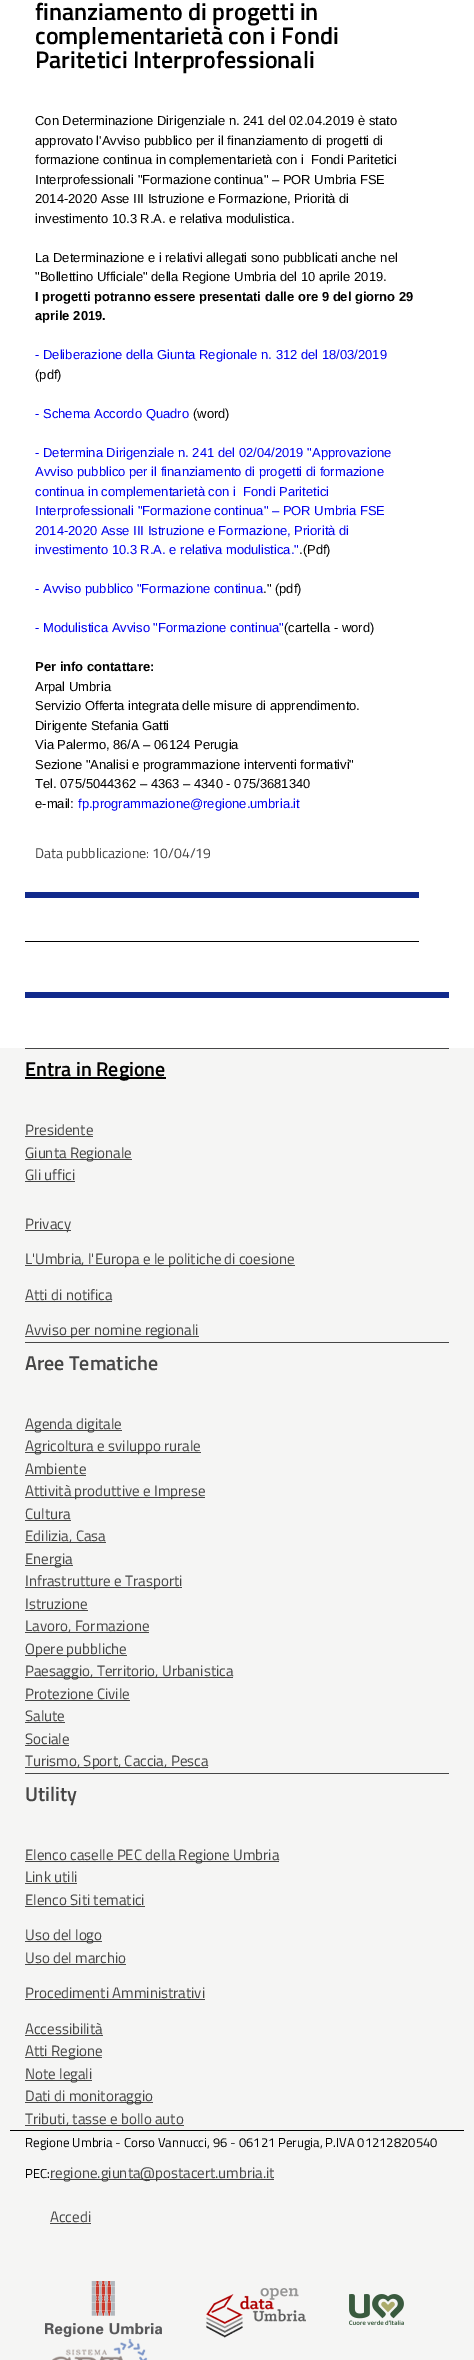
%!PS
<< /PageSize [474 2360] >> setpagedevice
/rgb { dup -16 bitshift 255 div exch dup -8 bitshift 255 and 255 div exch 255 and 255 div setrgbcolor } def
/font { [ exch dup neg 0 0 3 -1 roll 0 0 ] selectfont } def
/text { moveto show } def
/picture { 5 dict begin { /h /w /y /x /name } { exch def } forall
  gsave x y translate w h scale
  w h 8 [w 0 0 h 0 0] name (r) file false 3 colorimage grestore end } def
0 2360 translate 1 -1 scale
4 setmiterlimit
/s1 { /TitilliumWeb-SemiBold 24 font 16#000000 rgb } def
/s2 { /LiberationSans-Regular 13 font 16#000000 rgb } def
/s3 { /LiberationSans-Bold 13 font 16#000000 rgb } def
/s4 { /LiberationSans-Regular 13 font 16#0000EE rgb } def
/s5 { /TitilliumWeb-Regular 14 font 16#464646 rgb } def
/s6 { /TitilliumWeb-SemiBold 20 font 16#000000 rgb } def
/s7 { /TitilliumWeb-Regular 15 font 16#464646 rgb } def
/s8 { /TitilliumWeb-SemiBold 20 font 16#464646 rgb } def
/s9 { /TitilliumWeb-Regular 13 font 16#000000 rgb } def
16#FFFFFF rgb
0 0 474 2360 rectfill
s1
(finanziamento di progetti in) 35 20 text
(complementarietà con i Fondi) 35 44 text
(Paritetici Interprofessionali) 35 68 text
s2
(Con Determinazione Dirigenziale n. 241 del 02.04.2019 è stato) 35 125 text
(approvato l'Avviso pubblico per il finanziamento di progetti di) 35 145 text
(formazione continua in complementarietà con i  Fondi Paritetici) 35 164 text
(Interprofessionali "Formazione continua" – POR Umbria FSE) 35 184 text
(2014-2020 Asse III Istruzione e Formazione, Priorità di) 35 203 text
(investimento 10.3 R.A. e relativa modulistica.) 35 223 text
(La Determinazione e i relativi allegati sono pubblicati anche nel) 35 262 text
("Bollettino Ufficiale" della Regione Umbria del 10 aprile 2019.) 35 281 text
s3
(I progetti potranno essere presentati dalle ore 9 del giorno 29) 35 301 text
(aprile 2019.) 35 320 text
s4
(- Deliberazione della Giunta Regionale n. 312 del 18/03/2019) 35 359 text
s2
(\(pdf\)) 35 379 text
s4
(- Schema Accordo Quadro) 35 418 text
s2
(\(word\)) 193 418 text
s4
(- Determina Dirigenziale n. 241 del 02/04/2019 "Approvazione) 35 457 text
(Avviso pubblico per il finanziamento di progetti di formazione) 35 476 text
(continua in complementarietà con i  Fondi Paritetici) 35 496 text
(Interprofessionali "Formazione continua" – POR Umbria FSE) 35 515 text
(2014-2020 Asse III Istruzione e Formazione, Priorità di) 35 535 text
(investimento 10.3 R.A. e relativa modulistica.") 35 554 text
s2
(.\(Pdf\)) 299 554 text
s4
(- Avviso pubblico "Formazione continua) 35 593 text
s2
(." \(pdf\)) 263 593 text
s4
(- Modulistica Avviso "Formazione continua") 35 632 text
s2
(\(cartella - word\)) 284 632 text
s3
(Per info contattare:) 35 671 text
s2
(Arpal Umbria) 35 691 text
(Servizio Offerta integrata delle misure di apprendimento.) 35 710 text
(Dirigente Stefania Gatti) 35 730 text
(Via Palermo, 86/A – 06124 Perugia) 35 749 text
(Sezione "Analisi e programmazione interventi formativi") 35 769 text
(Tel. 075/5044362 – 4363 – 4340 - 075/3681340) 35 788 text
(e-mail:) 35 808 text
s4
(fp.programmazione@regione.umbria.it) 78 808 text
s5
(Data pubblicazione: 10/04/19) 35 858 text
16#112A8C rgb
25 892 394 6 rectfill
16#000000 rgb
25 941 394 1 rectfill
16#112A8C rgb
25 992 424 6 rectfill
16#F5F5F4 rgb
0 1048 474 1312 rectfill
16#000000 rgb
10 2130 454 1 rectfill
16#464646 rgb
25 1048 424 1 rectfill
16#000000 rgb
25 1077 141 2 rectfill
s6
(Entra in Regione) 25 1076 text
s7
(Presidente) 25 1135 text
25 1136 68 1 rectfill
25 1159 107 1 rectfill
(Giunta Regionale) 25 1158 text
(Gli uffici) 25 1180 text
25 1181 50 1 rectfill
25 1230 46 1 rectfill
(Privacy) 25 1229 text
25 1265 270 1 rectfill
(L'Umbria, l'Europa e le politiche di coesione) 25 1264 text
(Atti di notifica) 25 1300 text
25 1301 87 1 rectfill
25 1336 174 1 rectfill
(Avviso per nomine regionali) 25 1335 text
25 1342 424 1 rectfill
s8
(Aree Tematiche) 25 1370 text
25 1430 97 1 rectfill
s7
(Agenda digitale) 25 1429 text
25 1452 176 1 rectfill
(Agricoltura e sviluppo rurale) 25 1451 text
(Ambiente) 25 1474 text
25 1475 61 1 rectfill
25 1497 180 1 rectfill
(Attività produttive e Imprese) 25 1496 text
(Cultura) 25 1519 text
25 1520 46 1 rectfill
25 1542 81 1 rectfill
(Edilizia, Casa) 25 1541 text
25 1565 48 1 rectfill
(Energia) 25 1564 text
25 1587 157 1 rectfill
(Infrastrutture e Trasporti) 25 1586 text
(Istruzione) 25 1609 text
25 1610 63 1 rectfill
25 1632 124 1 rectfill
(Lavoro, Formazione) 25 1631 text
25 1655 102 1 rectfill
(Opere pubbliche) 25 1654 text
25 1677 208 1 rectfill
(Paesaggio, Territorio, Urbanistica) 25 1676 text
(Protezione Civile) 25 1699 text
25 1700 105 1 rectfill
(Salute) 25 1721 text
25 1722 40 1 rectfill
(Sociale) 25 1744 text
25 1745 44 1 rectfill
25 1767 183 1 rectfill
(Turismo, Sport, Caccia, Pesca) 25 1766 text
25 1773 424 1 rectfill
s8
(Utility) 25 1801 text
25 1861 254 1 rectfill
s7
(Elenco caselle PEC della Regione Umbria) 25 1860 text
(Link utili) 25 1882 text
25 1883 52 1 rectfill
(Elenco Siti tematici) 25 1905 text
25 1906 120 1 rectfill
25 1941 77 1 rectfill
(Uso del logo) 25 1940 text
(Uso del marchio) 25 1963 text
25 1964 101 1 rectfill
(Procedimenti Amministrativi) 25 1998 text
25 1999 180 1 rectfill
(Accessibilità) 25 2034 text
25 2035 78 1 rectfill
25 2057 77 1 rectfill
(Atti Regione) 25 2056 text
25 2080 67 1 rectfill
(Note legali) 25 2079 text
25 2102 128 1 rectfill
(Dati di monitoraggio) 25 2101 text
25 2125 159 1 rectfill
(Tributi, tasse e bollo auto) 25 2124 text
s9
(Regione Umbria - Corso Vannucci, 96 - 06121 Perugia, P.IVA 01212820540) 25 2147 text
(PEC:) 25 2178 text
16#464646 rgb
50 2179 224 1 rectfill
s7
(regione.giunta@postacert.umbria.it) 50 2178 text
(Accedi) 50 2222 text
50 2223 41 1 rectfill
(pic1.raw) 45 2281 117 56 picture
(pic2.raw) 206 2288 100 50 picture
(pic3.raw) 349 2294 55 31 picture
(pic4.raw) 52 2339 96 21 picture
showpage
